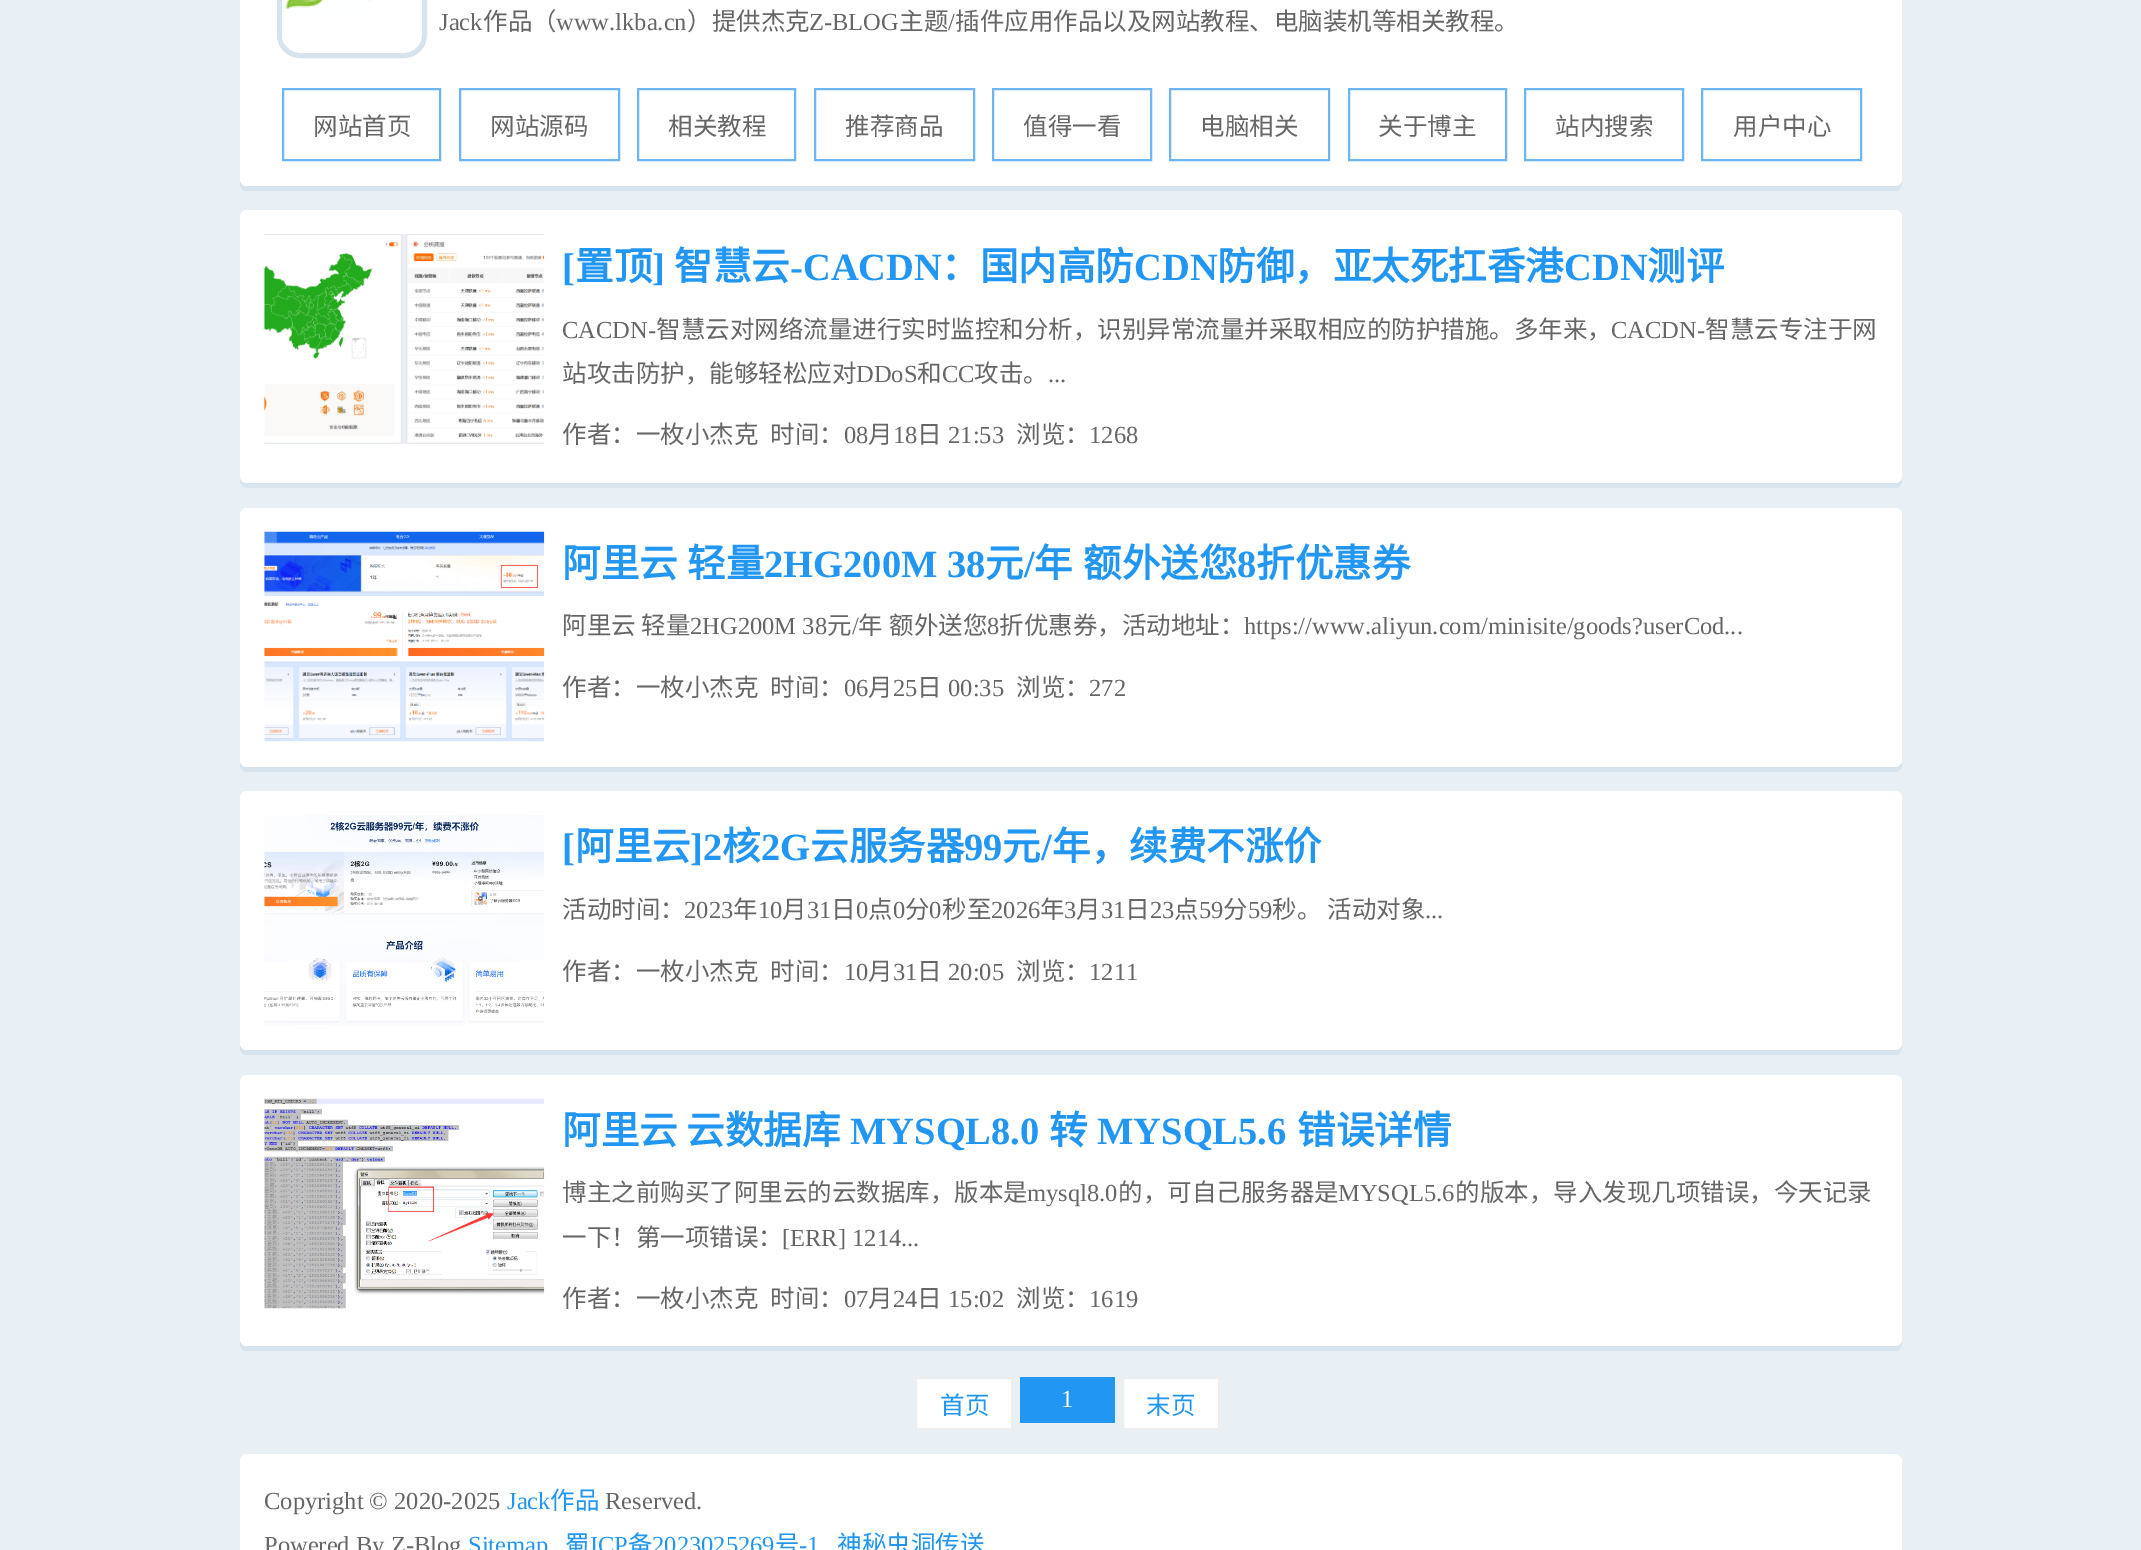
%!PS
<< /PageSize [2141 1550] >> setpagedevice
/rgb { dup -16 bitshift 255 div exch dup -8 bitshift 255 and 255 div exch 255 and 255 div setrgbcolor } def
/font { [ exch dup neg 0 0 3 -1 roll 0 0 ] selectfont } def
/text { moveto show } def
/roundrect { 5 dict begin { /r /h /w /y /x } { exch def } forall
  x r add y moveto x w add y 2 copy h add r arct x w add y h add x 1 index r arct
  x y h add x y r arct x y 2 copy exch w add exch r arct closepath end } def
/picture { 5 dict begin { /h /w /y /x /name } { exch def } forall
  gsave x y translate w h scale
  w h 8 [w 0 0 h 0 0] name (r) file false 3 colorimage grestore end } def
0 1550 translate 1 -1 scale
4 setmiterlimit
/s1 { /LiberationSerif-Regular 24.5 font 16#666666 rgb } def
/s2 { /NotoSansCJKSC-Regular 24.5 font 16#666666 rgb } def
/s3 { /LiberationSerif-Bold 38.5 font 16#2196F3 rgb } def
/s4 { /NotoSansCJKSC-Bold 38.5 font 16#2196F3 rgb } def
/s5 { /NotoSansCJKSC-Regular 24.5 font 16#2196F3 rgb } def
/s6 { /LiberationSerif-Regular 24.5 font 16#FFFFFF rgb } def
/s7 { /LiberationSerif-Regular 24.5 font 16#2196F3 rgb } def
16#E9F0F5 rgb
0 0 2141 1550 rectfill
16#D7E4ED rgb
240 181 moveto 240 184 lineto 240 188 243 191 247 191 curveto 1895 191 lineto 1899 191 1902 188 1902 184 curveto 1902 181 lineto 1901 184 1899 186 1896 186 curveto 246 186 lineto 243 186 241 184 240 181 curveto closepath fill
16#FFFFFF rgb
240 -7 1662 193 7 roundrect fill
16#D7E4ED rgb
5 setlinewidth
279.5 -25.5 145 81 20.5 roundrect stroke
(pic1.raw) 282 0 90 44 picture
s1
(Jack) 439 30 text
s2
(作品（) 483 30 text
s1
(www.lkba.cn) 556 30 text
s2
(）提供杰克) 687 30 text
s1
(Z-BLOG) 809 30 text
s2
(主题) 899 30 text
s1
(/) 948 30 text
s2
(插件应用作品以及网站教程、电脑装机等相关教程。) 955 30 text
16#6EB6F2 rgb
2 setlinewidth
283 89 157 71 rectstroke
s2
(网站首页) 313 135 text
16#6EB6F2 rgb
460 89 159 71 rectstroke
s2
(网站源码) 490 135 text
16#6EB6F2 rgb
638 89 157 71 rectstroke
s2
(相关教程) 668 135 text
16#6EB6F2 rgb
815 89 159 71 rectstroke
s2
(推荐商品) 845 135 text
16#6EB6F2 rgb
993 89 158 71 rectstroke
s2
(值得一看) 1023 135 text
16#6EB6F2 rgb
1170 89 159 71 rectstroke
s2
(电脑相关) 1200 135 text
16#6EB6F2 rgb
1349 89 157 71 rectstroke
s2
(关于博主) 1378 135 text
16#6EB6F2 rgb
1525 89 158 71 rectstroke
s2
(站内搜索) 1555 135 text
16#6EB6F2 rgb
1702 89 159 71 rectstroke
s2
(用户中心) 1733 135 text
16#D7E4ED rgb
240 479 moveto 240 483 241 488 247 488 curveto 1895 488 lineto 1901 488 1902 483 1902 479 curveto 1901 481 1899 483 1896 483 curveto 246 483 lineto 243 483 241 481 240 479 curveto closepath fill
16#FFFFFF rgb
240 210 1662 273 7 roundrect fill
(pic2.raw) 264 234 281 210 picture
s3
([) 562 280 text
s4
(置顶) 575 280 text
s3
(]) 652 280 text
s4
(智慧云) 674 280 text
s3
(-CACDN) 790 280 text
s4
(：国内高防) 941 280 text
s3
(CDN) 1134 280 text
s4
(防御，亚太死扛香港) 1217 280 text
s3
(CDN) 1564 280 text
s4
(测评) 1647 280 text
s1
(CACDN-) 562 338 text
s2
(智慧云对网络流量进行实时监控和分析，识别异常流量并采取相应的防护措施。多年来，) 656 338 text
s1
(CACDN-) 1611 338 text
s2
(智慧云专注于网) 1705 338 text
(站攻击防护，能够轻松应对) 562 382 text
s1
(DDoS) 856 382 text
s2
(和) 917 382 text
s1
(CC) 942 382 text
s2
(攻击。) 974 382 text
s1
(...) 1048 382 text
s2
(作者：一枚小杰克) 562 443 text
(时间：) 770 443 text
s1
(08) 844 443 text
s2
(月) 868 443 text
s1
(18) 893 443 text
s2
(日) 917 443 text
s1
(21:53) 948 443 text
s2
(浏览：) 1016 443 text
s1
(1268) 1089 443 text
16#D7E4ED rgb
240 762 moveto 240 765 lineto 240 769 243 772 247 772 curveto 1895 772 lineto 1899 772 1902 769 1902 765 curveto 1902 762 lineto 1901 765 1899 766 1896 766 curveto 246 766 lineto 243 766 241 765 240 762 curveto closepath fill
16#FFFFFF rgb
240 508 1662 259 7 roundrect fill
(pic3.raw) 264 531 281 211 picture
s4
(阿里云) 562 577 text
(轻量) 687 577 text
s3
(2HG200M 38) 764 577 text
s4
(元) 985 577 text
s3
(/) 1024 577 text
s4
(年) 1034 577 text
(额外送您) 1083 577 text
s3
(8) 1237 577 text
s4
(折优惠券) 1256 577 text
s2
(阿里云) 562 634 text
(轻量) 641 634 text
s1
(2HG200M 38) 690 634 text
s2
(元) 827 634 text
s1
(/) 852 634 text
s2
(年) 858 634 text
(额外送您) 889 634 text
s1
(8) 987 634 text
s2
(折优惠券，活动地址：) 999 634 text
s1
(https://www.aliyun.com/minisite/goods?userCod...) 1244 634 text
s2
(作者：一枚小杰克) 562 696 text
(时间：) 770 696 text
s1
(06) 844 696 text
s2
(月) 868 696 text
s1
(25) 893 696 text
s2
(日) 917 696 text
s1
(00:35) 948 696 text
s2
(浏览：) 1016 696 text
s1
(272) 1089 696 text
16#D7E4ED rgb
240 1046 moveto 240 1050 241 1055 247 1055 curveto 1895 1055 lineto 1901 1055 1902 1050 1902 1046 curveto 1901 1048 1899 1050 1896 1050 curveto 246 1050 lineto 243 1050 241 1048 240 1046 curveto closepath fill
16#FFFFFF rgb
240 791 1662 259 7 roundrect fill
(pic4.raw) 264 815 281 210 picture
s3
([) 562 860 text
s4
(阿里云) 575 860 text
s3
(]2) 690 860 text
s4
(核) 722 860 text
s3
(2G) 761 860 text
s4
(云服务器) 810 860 text
s3
(99) 964 860 text
s4
(元) 1002 860 text
s3
(/) 1041 860 text
s4
(年，续费不涨价) 1052 860 text
s2
(活动时间：) 562 918 text
s1
(2023) 684 918 text
s2
(年) 733 918 text
s1
(10) 758 918 text
s2
(月) 782 918 text
s1
(31) 807 918 text
s2
(日) 831 918 text
s1
(0) 856 918 text
s2
(点) 868 918 text
s1
(0) 893 918 text
s2
(分) 905 918 text
s1
(0) 929 918 text
s2
(秒至) 942 918 text
s1
(2026) 991 918 text
s2
(年) 1040 918 text
s1
(3) 1064 918 text
s2
(月) 1076 918 text
s1
(31) 1101 918 text
s2
(日) 1125 918 text
s1
(23) 1150 918 text
s2
(点) 1174 918 text
s1
(59) 1199 918 text
s2
(分) 1223 918 text
s1
(59) 1248 918 text
/NotoSansCJKSC-Regular 24.5 font
1272 918 moveto 1 0 32 (秒。 活动对象) widthshow
s1
(...) 1425 918 text
s2
(作者：一枚小杰克) 562 980 text
(时间：) 770 980 text
s1
(10) 844 980 text
s2
(月) 868 980 text
s1
(31) 893 980 text
s2
(日) 917 980 text
s1
(20:05) 948 980 text
s2
(浏览：) 1016 980 text
s1
(1211) 1089 980 text
16#D7E4ED rgb
240 1341 moveto 240 1344 lineto 240 1348 243 1351 247 1351 curveto 1895 1351 lineto 1899 1351 1902 1348 1902 1344 curveto 1902 1341 lineto 1901 1344 1899 1346 1896 1346 curveto 246 1346 lineto 243 1346 241 1344 240 1341 curveto closepath fill
16#FFFFFF rgb
240 1075 1662 271 7 roundrect fill
(pic5.raw) 264 1098 281 211 picture
s4
(阿里云 云数据库) 562 1144 text
s3
(MYSQL8.0) 850 1144 text
s4
(转) 1049 1144 text
s3
(MYSQL5.6) 1097 1144 text
s4
(错误详情) 1297 1144 text
s2
(博主之前购买了阿里云的云数据库，版本是) 562 1201 text
s1
(mysql8.0) 1027 1201 text
s2
(的，可自己服务器是) 1118 1201 text
s1
(MYSQL5.6) 1338 1201 text
s2
(的版本，导入发现几项错误，今天记录) 1455 1201 text
(一下！第一项错误：) 562 1246 text
s1
([ERR] 1214...) 782 1246 text
s2
(作者：一枚小杰克) 562 1307 text
(时间：) 770 1307 text
s1
(07) 844 1307 text
s2
(月) 868 1307 text
s1
(24) 893 1307 text
s2
(日) 917 1307 text
s1
(15:02) 948 1307 text
s2
(浏览：) 1016 1307 text
s1
(1619) 1089 1307 text
16#FFFFFF rgb
916 1378 moveto 1012 1378 lineto 1012 1429 lineto 916 1429 lineto closepath gsave fill grestore
16#EEEEEE rgb
stroke
s5
(首页) 940 1414 text
1020 1377 95 46 rectfill
s6
(1) 1061 1407 text
1123 1378 moveto 1219 1378 lineto 1219 1429 lineto 1123 1429 lineto closepath gsave fill grestore
16#EEEEEE rgb
stroke
s5
(末页) 1146 1414 text
16#FFFFFF rgb
240 1454 1662 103 7 roundrect fill
s1
(Copyright © 2020-2025) 264 1509 text
s7
(Jack) 507 1509 text
s5
(作品) 550 1509 text
s1
(Reserved.) 605 1509 text
(Powered By Z-Blog) 264 1553 text
s7
(Sitemap) 468 1553 text
s5
(蜀) 565 1553 text
s7
(ICP) 590 1553 text
s5
(备) 628 1553 text
s7
(2023025269) 652 1553 text
s5
(号) 775 1553 text
s7
(-1) 799 1553 text
s5
(神秘虫洞传送) 837 1553 text
showpage
